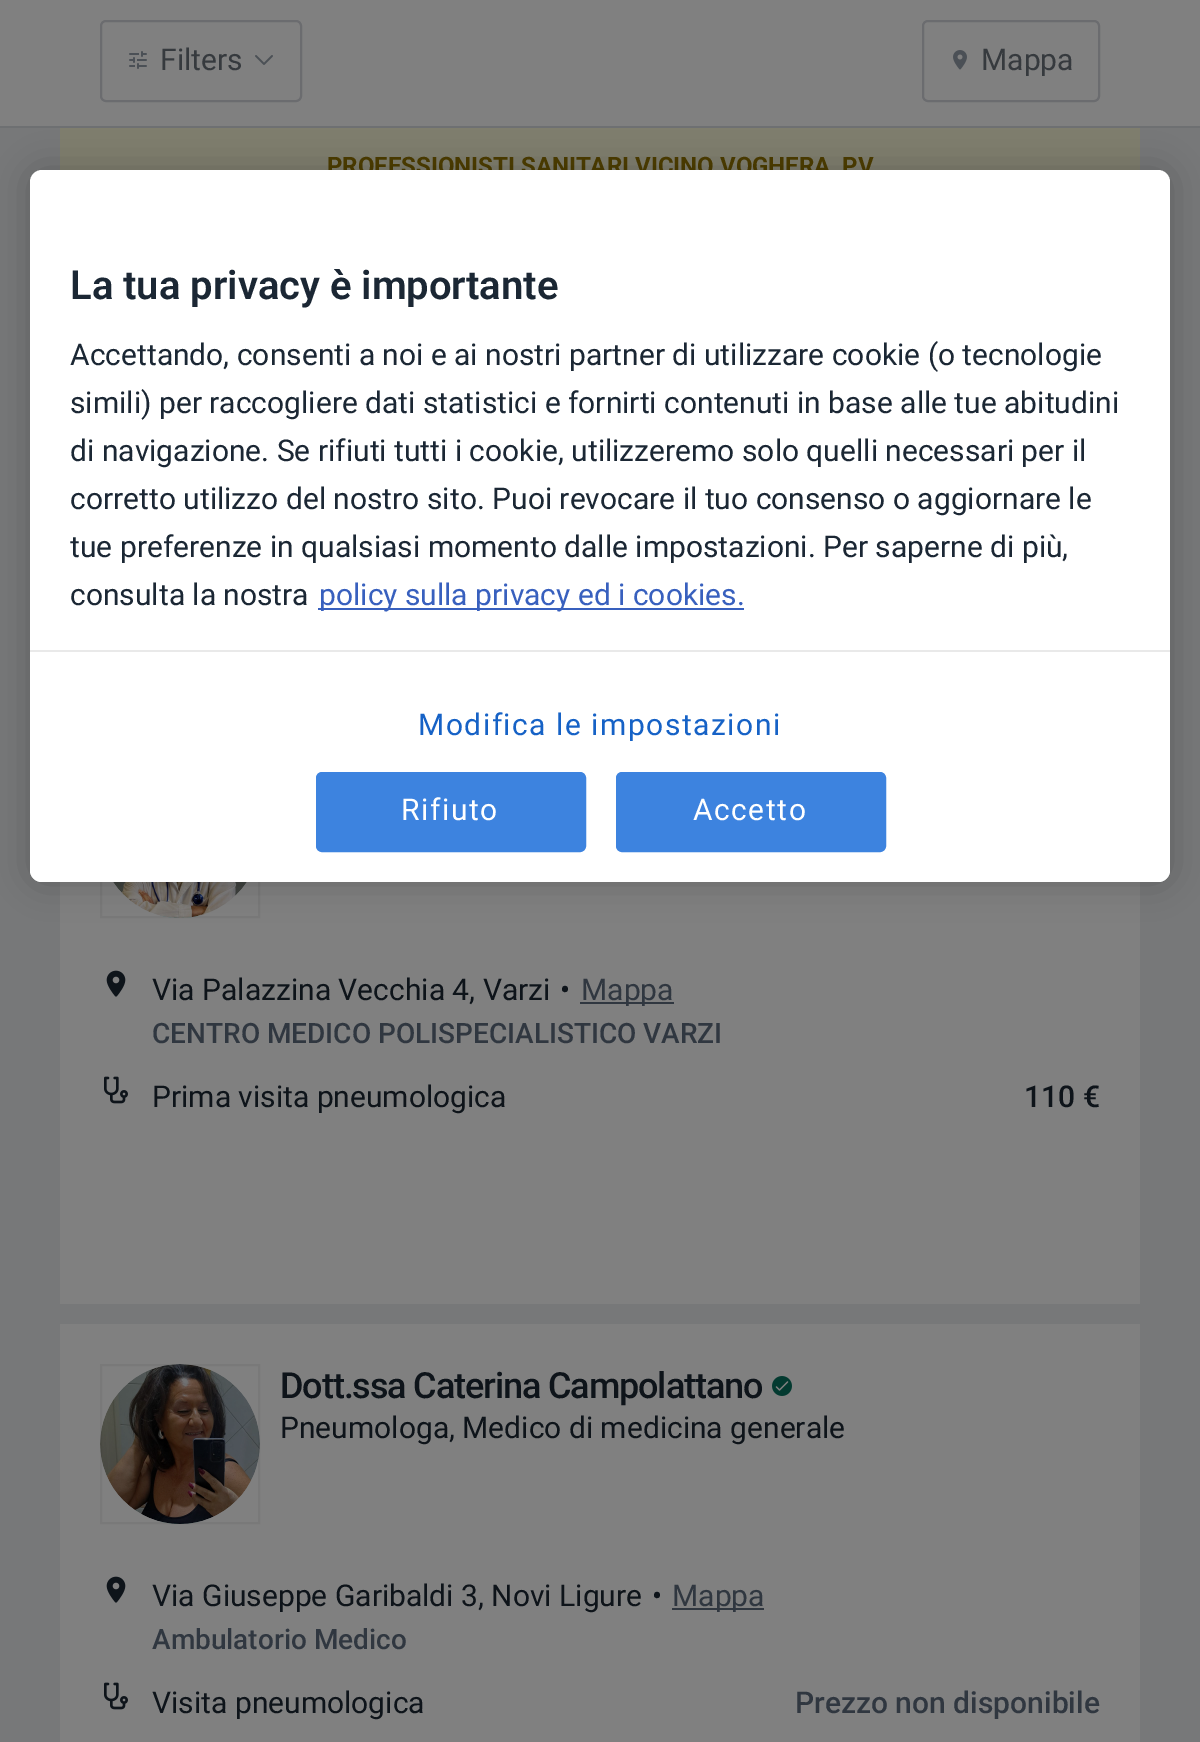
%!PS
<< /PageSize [1200 1742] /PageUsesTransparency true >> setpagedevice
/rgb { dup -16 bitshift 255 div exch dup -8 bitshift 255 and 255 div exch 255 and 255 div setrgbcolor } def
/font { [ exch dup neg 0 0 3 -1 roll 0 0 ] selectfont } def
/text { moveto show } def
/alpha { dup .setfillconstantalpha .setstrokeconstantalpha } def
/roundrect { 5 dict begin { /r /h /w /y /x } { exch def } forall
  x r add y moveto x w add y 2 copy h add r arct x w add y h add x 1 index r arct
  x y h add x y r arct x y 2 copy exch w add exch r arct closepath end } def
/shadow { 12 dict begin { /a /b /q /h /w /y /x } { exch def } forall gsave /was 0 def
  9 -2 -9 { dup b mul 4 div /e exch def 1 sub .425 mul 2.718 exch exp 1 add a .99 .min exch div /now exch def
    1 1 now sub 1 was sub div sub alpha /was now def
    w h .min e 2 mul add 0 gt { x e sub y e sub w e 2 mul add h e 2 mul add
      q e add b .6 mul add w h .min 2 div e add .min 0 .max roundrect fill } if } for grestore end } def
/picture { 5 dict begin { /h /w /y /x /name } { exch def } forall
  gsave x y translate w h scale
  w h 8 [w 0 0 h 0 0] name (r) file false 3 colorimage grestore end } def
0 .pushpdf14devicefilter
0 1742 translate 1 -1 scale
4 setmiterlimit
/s1 { /Roboto-Regular 30 font 16#363A3E rgb } def
/s2 { /Roboto-Bold 24 font 16#4D3C00 rgb } def
/s3 { /Roboto-Regular 30 font 16#0E141A rgb } def
/s4 { /Roboto-Regular 30 font 16#303740 rgb } def
/s5 { /Roboto-Medium 28 font 16#303740 rgb } def
/s6 { /Roboto-Medium 30 font 16#0E141A rgb } def
/s7 { /Roboto-Medium 30 font 16#303740 rgb } def
/s8 { /Roboto-SemiBold 40 font 16#1B2734 rgb } def
/s9 { /Roboto-Regular 30 font 16#1B2734 rgb } def
/s10 { /Roboto-Regular 30 font 16#3860BE rgb } def
16#777879 rgb
0 0 1200 1742 rectfill
16#808080 rgb
0 0 1200 126 rectfill
16#6E7072 rgb
0 126 1200 2 rectfill
16#6B6C6F rgb
2 setlinewidth
101 21 200 80 5 roundrect stroke
(pic1.raw) 129 51 18 18 picture
s1
(Filters) 160 70 text
(pic2.raw) 255 55 18 10 picture
16#6B6C6F rgb
923 21 176 80 5 roundrect stroke
(pic3.raw) 953 50 14 20 picture
s1
(Mappa) 981 70 text
16#7F7E6E rgb
60 128 1080 42 rectfill
s2
(PROFESSIONISTI SANITARI VICINO VOGHERA, PV) 327 174 text
16#808080 rgb
60 882 1080 422 rectfill
(pic4.raw) 113 882 134 36 picture
(pic5.raw) 113 882 134 36 picture
0.05 alpha
16#000000 rgb
101 759 158 158 rectstroke
1 alpha
(pic6.raw) 106 970 20 27 picture
s3
(Via Palazzina Vecchia 4, Varzi) 152 1000 text
(•) 560 1000 text
16#303740 rgb
580 1002 94 2 rectfill
(Mappa) 581 1000 text
s5
(CENTRO MEDICO POLISPECIALISTICO VARZI) 152 1043 text
(pic7.raw) 104 1076 24 28 picture
s3
(Prima visita pneumologica) 152 1107 text
s6
(110 €) 1024 1107 text
16#808080 rgb
60 1324 1080 418 rectfill
(pic8.raw) 100 1364 160 160 picture
(pic9.raw) 100 1364 160 160 picture
0.05 alpha
16#000000 rgb
101 1365 158 158 rectstroke
/Roboto-Medium 36 font
1 alpha
16#0E141A rgb
280 1398 moveto -1.1 0 (Dott.ssa Caterina Campolattano) ashow
(pic10.raw) 772 1376 20 20 picture
s3
(Pneumologa, Medico di medicina generale) 280 1438 text
(pic6.raw) 106 1576 20 27 picture
(Via Giuseppe Garibaldi 3, Novi Ligure) 152 1606 text
(•) 652 1606 text
16#303740 rgb
672 1608 92 2 rectfill
(Mappa) 672 1606 text
s5
(Ambulatorio Medico) 152 1649 text
(pic7.raw) 104 1682 24 28 picture
s3
(Visita pneumologica) 152 1713 text
s7
(Prezzo non disponibile) 795 1713 text
16#000000 rgb
30 170 1140 712 12 18 0.2 shadow
16#FFFFFF rgb
30 170 1140 712 12 roundrect fill
s8
(La tua privacy è importante) 70 299 text
s9
(Accettando, consenti a noi e ai nostri partner di utilizzare cookie \(o tecnologie) 70 365 text
(simili\) per raccogliere dati statistici e fornirti contenuti in base alle tue abitudini) 70 413 text
(di navigazione. Se rifiuti tutti i cookie, utilizzeremo solo quelli necessari per il) 70 461 text
(corretto utilizzo del nostro sito. Puoi revocare il tuo consenso o aggiornare le) 70 509 text
(tue preferenze in qualsiasi momento dalle impostazioni. Per saperne di più,) 70 557 text
(consulta la nostra) 70 605 text
16#3860BE rgb
318 608 426 2 rectfill
(policy sulla privacy ed i cookies.) 319 605 text
16#FFFFFF rgb
30 650 moveto 1170 650 lineto 1170 870 lineto 1170 876.5 1164.5 882 1158 882 curveto 42 882 lineto 35.5 882 30 876.5 30 870 curveto closepath fill
16#E9E9E9 rgb
30 650 1140 2 rectfill
16#1662C6 rgb
418 735 moveto 1.5 0 (Modifica le impostazioni) ashow
16#3D83DF rgb
317 773 268 78 5 roundrect gsave fill grestore
stroke
16#FFFFFF rgb
401 820 moveto 1.5 0 (Rifiuto) ashow
16#3D83DF rgb
617 773 268 78 5 roundrect gsave fill grestore
stroke
16#FFFFFF rgb
693 820 moveto 1.5 0 (Accetto) ashow
.poppdf14devicefilter showpage
